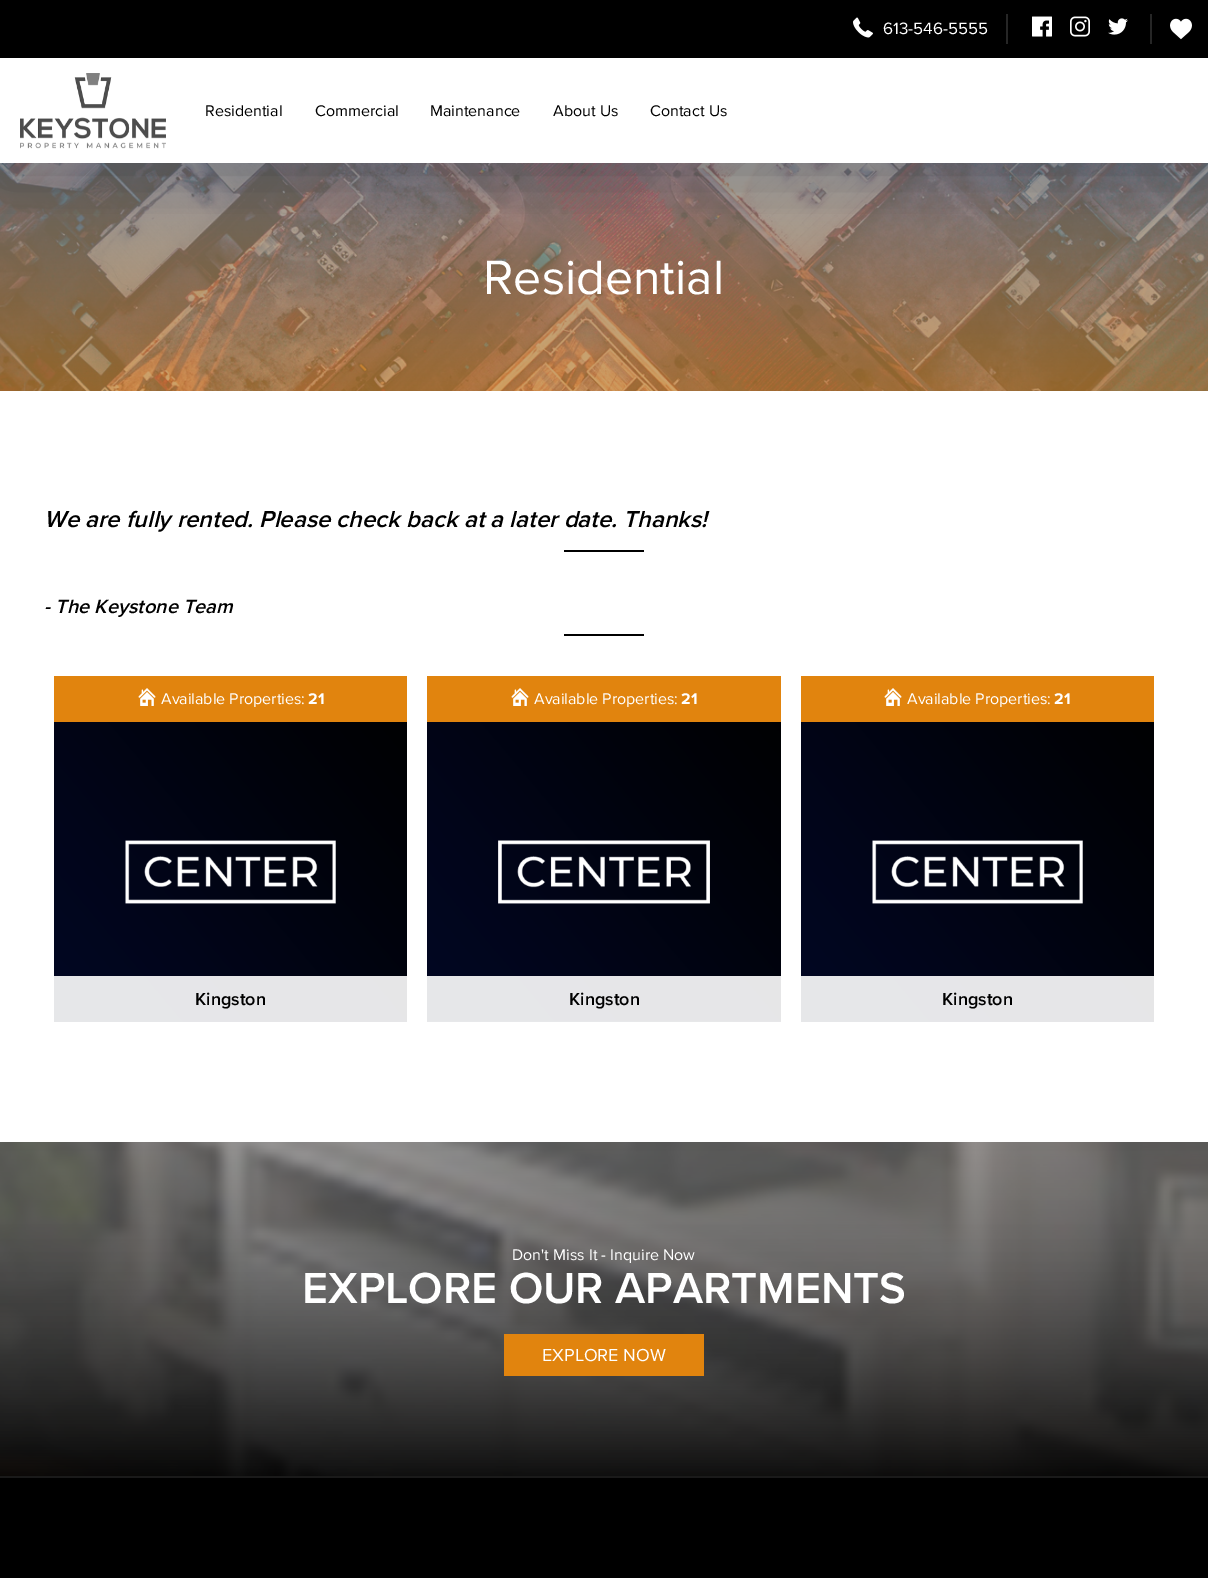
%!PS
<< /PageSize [1208 1578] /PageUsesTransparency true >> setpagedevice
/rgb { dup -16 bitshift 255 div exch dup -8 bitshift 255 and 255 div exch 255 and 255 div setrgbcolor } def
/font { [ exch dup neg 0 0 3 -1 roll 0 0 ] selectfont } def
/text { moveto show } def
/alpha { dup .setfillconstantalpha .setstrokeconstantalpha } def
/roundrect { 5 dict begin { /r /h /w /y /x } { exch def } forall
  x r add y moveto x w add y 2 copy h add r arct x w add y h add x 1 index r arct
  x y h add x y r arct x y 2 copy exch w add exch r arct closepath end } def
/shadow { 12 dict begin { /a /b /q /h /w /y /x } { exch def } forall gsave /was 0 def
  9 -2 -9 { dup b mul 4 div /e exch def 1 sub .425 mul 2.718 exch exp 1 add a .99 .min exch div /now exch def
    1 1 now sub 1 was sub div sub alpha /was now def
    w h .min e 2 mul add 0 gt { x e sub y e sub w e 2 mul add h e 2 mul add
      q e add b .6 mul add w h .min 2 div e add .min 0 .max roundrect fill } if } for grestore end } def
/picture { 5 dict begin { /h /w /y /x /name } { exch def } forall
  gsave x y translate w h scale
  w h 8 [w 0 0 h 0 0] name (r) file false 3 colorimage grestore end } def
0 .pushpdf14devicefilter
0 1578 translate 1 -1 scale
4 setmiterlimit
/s1 { /ProximaNova-Regular 17 font 16#FFFFFF rgb } def
/s2 { /ProximaNova-Regular 16 font 16#000000 rgb } def
/s3 { /ProximaNova-Regular 50 font 16#FFFFFF rgb } def
/s4 { /ProximaNova-SemiBoldItalic 24 font 16#000000 rgb } def
/s5 { /ProximaNova-SemiBoldItalic 20 font 16#000000 rgb } def
/s6 { /ProximaNova-Regular 16 font 16#FFFFFF rgb } def
/s7 { /ProximaNova-Bold 16 font 16#FFFFFF rgb } def
/s8 { /ProximaNova-SemiBold 18 font 16#000000 rgb } def
/s9 { /ProximaNova-SemiBold 45 font 16#FFFFFF rgb } def
/s10 { /ProximaNova-Regular 18 font 16#FFFFFF rgb } def
16#FFFFFF rgb
0 0 1208 1578 rectfill
(pic7.raw) 0 163 1208 228 picture
gsave
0 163 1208 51 rectclip
16#000000 rgb
0 5 1208 163 0 32.5 0.25 shadow
grestore
16#000000 rgb
0 0 1208 58 rectfill
(pic1.raw) 853 17 20 21 picture
s1
(613-546-5555) 883 34 text
16#262626 rgb
1006 14 2 30 rectfill
(pic2.raw) 1032 16 20 21 picture
(pic3.raw) 1070 16 20 21 picture
(pic4.raw) 1108 18 20 17 picture
1150 14 2 30 rectfill
(pic5.raw) 1170 18 22 22 picture
(pic6.raw) 20 73 146 76 picture
s2
(Residential) 205 116 text
(Commercial) 315 116 text
(Maintenance) 430 116 text
(About Us) 553 116 text
(Contact Us) 650 116 text
s3
(Residential) 483 294 text
s4
(We are fully rented. Please check back at a later date. Thanks!) 44 527 text
564 550 80 2 rectfill
s5
(- The Keystone Team) 44 613 text
564 634 80 2 rectfill
16#E1840E rgb
54 676 353 46 rectfill
(pic8.raw) 138 688 18 18 picture
s6
(Available Properties:) 161 704 text
s7
(21) 308 704 text
(pic9.raw) 54 722 353 300 picture
0.9 alpha
54 976 353 46 rectfill
1 alpha
s8
(Kingston) 195 1005 text
16#E1840E rgb
427 676 354 46 rectfill
(pic8.raw) 511 688 18 18 picture
s6
(Available Properties:) 534 704 text
s7
(21) 681 704 text
(pic10.raw) 427 722 354 300 picture
0.9 alpha
427 976 354 46 rectfill
1 alpha
s8
(Kingston) 569 1005 text
16#E1840E rgb
801 676 353 46 rectfill
(pic8.raw) 884 688 18 18 picture
s6
(Available Properties:) 907 704 text
s7
(21) 1054 704 text
(pic9.raw) 801 722 353 300 picture
0.9 alpha
801 976 353 46 rectfill
1 alpha
s8
(Kingston) 942 1005 text
(pic11.raw) 0 1142 1208 334 picture
s6
(Don't Miss It - Inquire Now) 512 1260 text
s9
(EXPLORE OUR APARTMENTS) 302 1303 text
16#E1840E rgb
504 1334 200 42 rectfill
s10
(EXPLORE NOW) 542 1361 text
16#000000 rgb
0 1478 1208 100 rectfill
16#1A1A1A rgb
0 1476 1208 2 rectfill
.poppdf14devicefilter showpage
